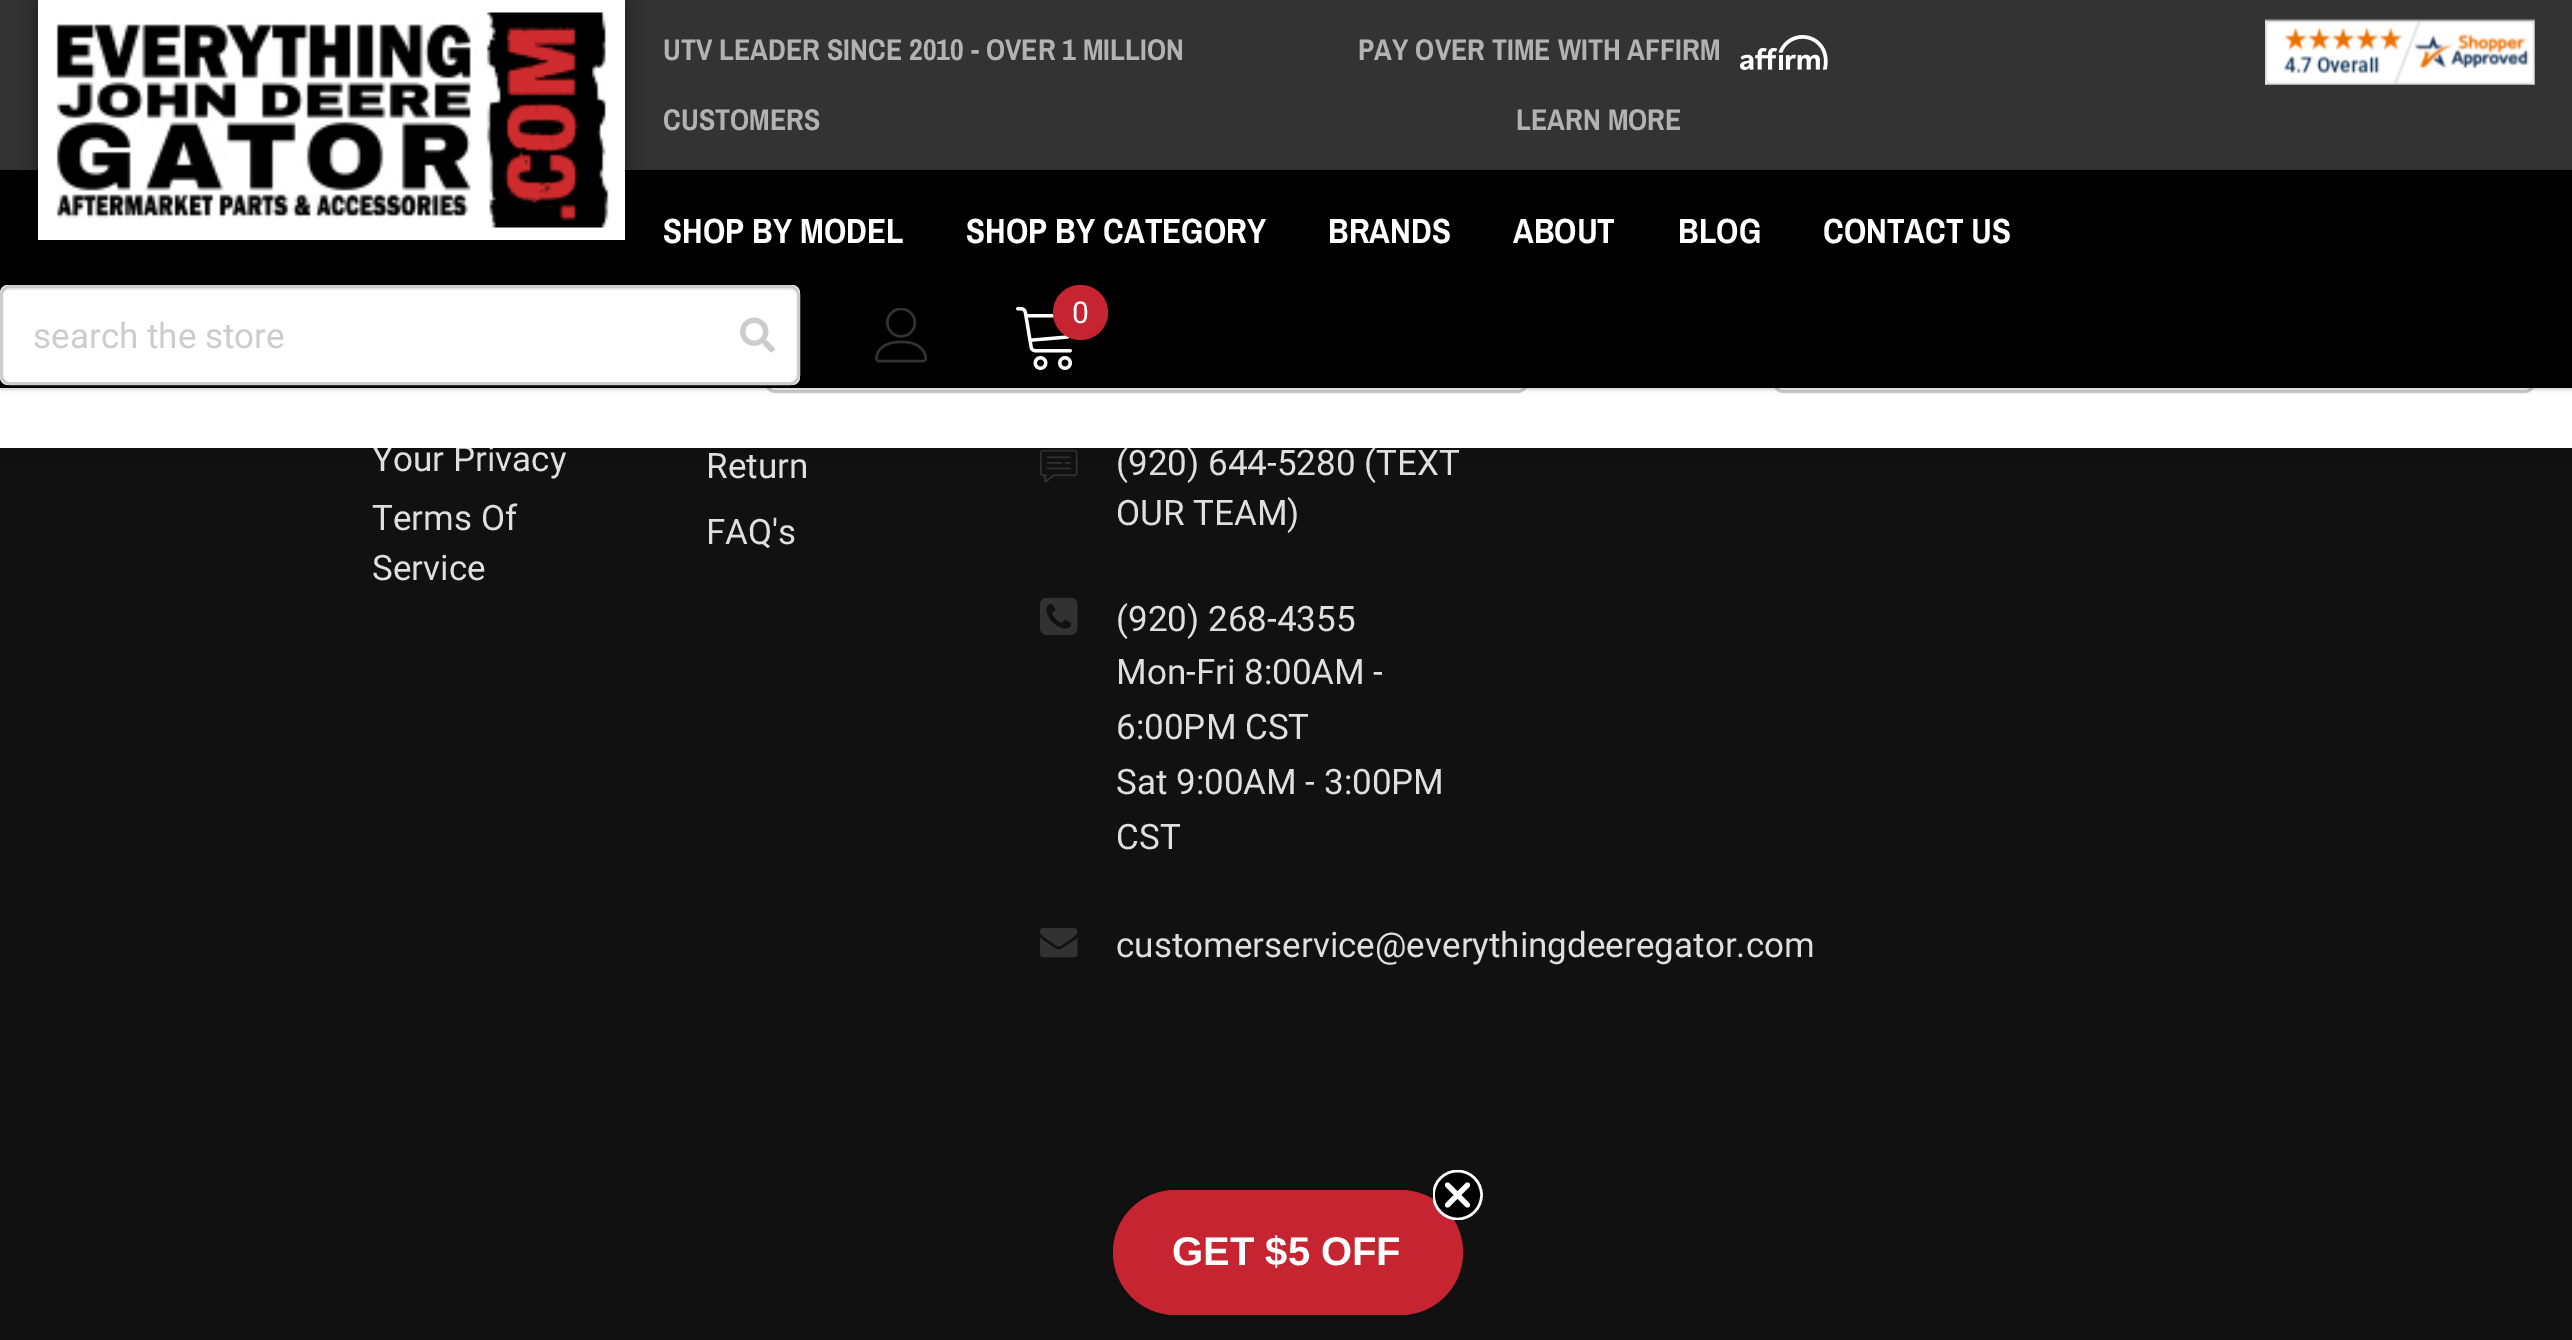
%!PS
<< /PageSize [2572 1340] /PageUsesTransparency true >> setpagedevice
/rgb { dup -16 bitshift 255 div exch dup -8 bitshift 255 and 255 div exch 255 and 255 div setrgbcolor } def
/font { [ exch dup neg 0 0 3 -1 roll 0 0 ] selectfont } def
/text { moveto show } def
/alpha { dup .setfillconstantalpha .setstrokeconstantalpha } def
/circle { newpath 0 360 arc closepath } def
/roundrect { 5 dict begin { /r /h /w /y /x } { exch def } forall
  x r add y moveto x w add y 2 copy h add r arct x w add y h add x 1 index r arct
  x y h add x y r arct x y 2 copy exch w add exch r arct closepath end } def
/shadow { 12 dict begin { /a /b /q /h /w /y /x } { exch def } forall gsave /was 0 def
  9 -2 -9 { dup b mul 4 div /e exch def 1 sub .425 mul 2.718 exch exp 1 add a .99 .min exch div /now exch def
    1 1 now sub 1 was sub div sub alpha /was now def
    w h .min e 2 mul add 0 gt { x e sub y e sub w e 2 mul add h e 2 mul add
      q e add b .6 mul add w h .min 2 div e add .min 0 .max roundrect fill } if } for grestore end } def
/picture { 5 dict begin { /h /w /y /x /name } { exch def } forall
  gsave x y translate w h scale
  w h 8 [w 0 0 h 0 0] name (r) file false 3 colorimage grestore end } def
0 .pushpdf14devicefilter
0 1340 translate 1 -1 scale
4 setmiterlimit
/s1 { /Roboto-Regular 35 font 16#DFDFDF rgb } def
/s2 { /ArchivoNarrow-Bold 30 font 16#B2B2B2 rgb } def
/s3 { /ArchivoNarrow-Bold 35 font 16#FFFFFF rgb } def
/s4 { /Roboto-Regular 35 font 16#CCCCCC rgb } def
/s5 { /Roboto-Regular 30 font 16#FFFFFF rgb } def
/s6 { /LiberationSans-Bold 40 font 16#FFFFFF rgb } def
16#111111 rgb
0 0 2572 1340 rectfill
(pic7.raw) 1040 449 38 34 picture
16#000000 rgb
0 220 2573 228 0 17.5 0.25 shadow
s1
(Your Privacy) 372 471 text
(\(920\) 644-5280 \(TEXT) 1116 475 text
16#FFFFFF rgb
0 388 2572 60 rectfill
16#CCCCCC rgb
3 setlinewidth
766.5 316.5 760 75 8.5 roundrect stroke
1774.5 316.5 759 75 8.5 roundrect stroke
16#000000 rgb
0 3 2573 387 0 2.5 0.1 shadow
0.06 alpha
-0.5 -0.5 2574 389 rectstroke
1 alpha
16#333333 rgb
0 0 2572 170 rectfill
16#000000 rgb
0 170 2572 218 rectfill
38 0 587 240 0 9 0.45 shadow
16#FFFFFF rgb
38 0 587 240 rectfill
(pic1.raw) 56 12 553 216 picture
s2
(UTV LEADER SINCE 2010 - OVER 1 MILLION) 663 60 text
(CUSTOMERS) 663 130 text
(PAY OVER TIME WITH AFFIRM) 1358 60 text
(pic2.raw) 1740 35 88 35 picture
(LEARN MORE) 1516 130 text
(pic3.raw) 2265 18 270 67 picture
s3
(SHOP BY MODEL) 663 243 text
(SHOP BY CATEGORY) 966 243 text
(BRANDS) 1328 243 text
(ABOUT) 1513 243 text
(BLOG) 1678 243 text
(CONTACT US) 1823 243 text
0 285 800 100 8 roundrect fill
0 285 800 100 10 roundrect fill
16#ECECEC rgb
10 290 moveto 790 290 lineto 794 290 798 293 798 298 curveto 798 296 lineto 798 292 794 288 790 288 curveto 11 288 lineto 8 288 5 290 3 293 curveto 5 291 8 290 10 290 curveto closepath fill
16#CCCCCC rgb
1.5 286.5 797 97 8.5 roundrect stroke
s4
(search the store) 33 348 text
(pic4.raw) 740 317 35 36 picture
(pic5.raw) 875 308 53 55 picture
(pic6.raw) 1016 307 56 63 picture
16#C62431 rgb
1080.5 312.5 27.5 circle fill
s5
(0) 1072 323 text
s1
(Terms Of) 372 530 text
(Service) 372 580 text
(Return) 706 478 text
(FAQ's) 706 544 text
(OUR TEAM\)) 1116 525 text
(pic8.raw) 1040 598 38 37 picture
(\(920\) 268-4355) 1116 631 text
(Mon-Fri 8:00AM -) 1116 684 text
(6:00PM CST) 1116 739 text
(Sat 9:00AM - 3:00PM) 1116 794 text
(CST) 1116 849 text
(pic9.raw) 1040 927 38 31 picture
(customerservice@everythingdeeregator.com) 1116 957 text
16#C62431 rgb
1113 1190 350 125 62.5 roundrect fill
16#000000 rgb
1457.5 1195 24 circle fill
gsave
1433 1170 50 50 rectclip
16#FFFFFF rgb
2.5 setlinewidth
1457.5 1195 24 circle stroke
grestore
16#FFFFFF rgb
5 setlinewidth
1 setlinecap
1 setlinejoin
1447.5 1185 moveto 1467.5 1205 lineto 1447.5 1205 moveto 1467.5 1185 lineto closepath stroke
s6
(GET $5 OFF) 1172 1265 text
.poppdf14devicefilter showpage
